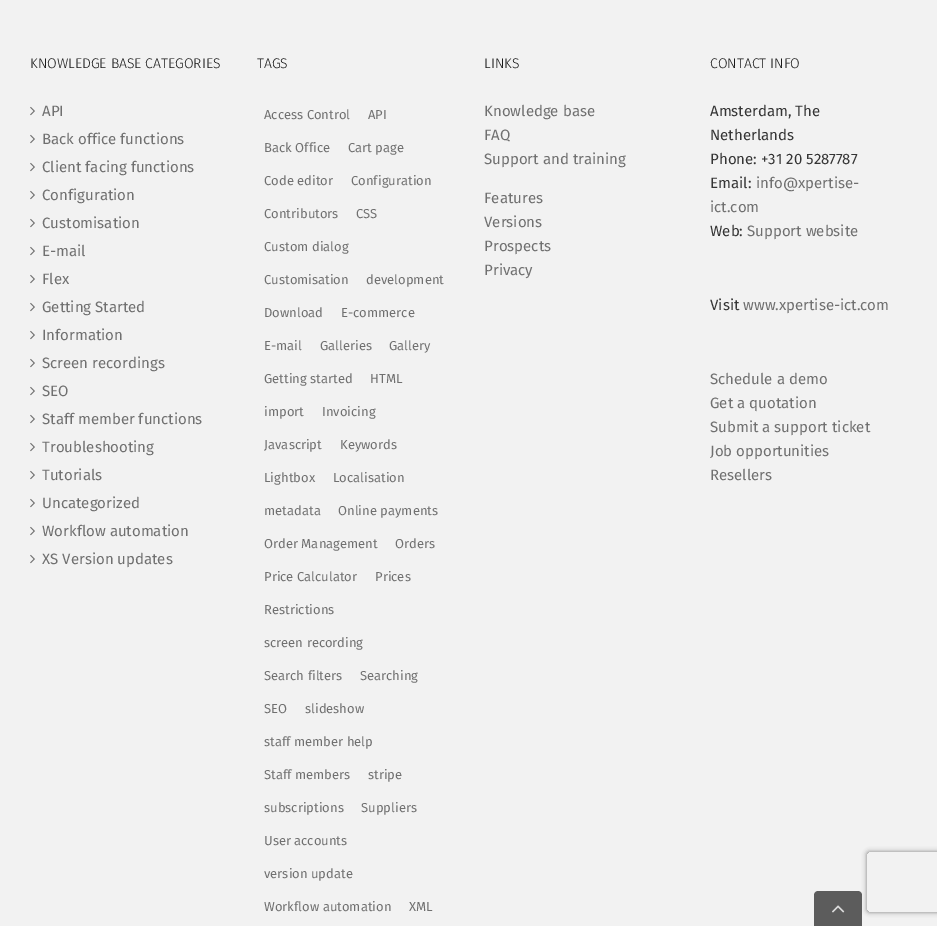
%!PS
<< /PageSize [937 926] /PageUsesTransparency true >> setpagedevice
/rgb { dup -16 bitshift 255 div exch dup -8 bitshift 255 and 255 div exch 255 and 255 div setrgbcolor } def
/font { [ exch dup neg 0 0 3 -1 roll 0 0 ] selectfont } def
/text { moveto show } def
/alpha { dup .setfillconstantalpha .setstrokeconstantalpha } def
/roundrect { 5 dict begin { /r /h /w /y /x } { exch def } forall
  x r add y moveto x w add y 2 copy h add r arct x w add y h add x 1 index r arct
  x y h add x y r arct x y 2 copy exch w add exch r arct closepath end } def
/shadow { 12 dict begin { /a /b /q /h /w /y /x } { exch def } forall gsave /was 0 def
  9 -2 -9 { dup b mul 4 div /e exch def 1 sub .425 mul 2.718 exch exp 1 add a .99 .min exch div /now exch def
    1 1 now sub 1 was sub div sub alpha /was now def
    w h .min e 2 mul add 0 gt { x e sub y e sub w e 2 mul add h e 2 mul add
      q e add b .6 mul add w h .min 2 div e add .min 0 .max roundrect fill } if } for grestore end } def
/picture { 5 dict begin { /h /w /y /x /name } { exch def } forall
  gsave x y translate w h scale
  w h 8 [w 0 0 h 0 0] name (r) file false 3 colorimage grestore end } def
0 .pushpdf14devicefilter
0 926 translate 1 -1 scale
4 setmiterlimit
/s1 { /FiraSans-Light 14 font 16#191919 rgb } def
/s2 { /FiraSans-Regular 15 font 16#707070 rgb } def
/s3 { /FiraSans-Regular 13 font 16#707070 rgb } def
/s4 { /FiraSans-Regular 15 font 16#353535 rgb } def
16#F2F2F2 rgb
0 0 937 926 rectfill
s1
(KNOWLEDGE BASE CATEGORIES) 30 68 text
(pic1.raw) 30 106 5 10 picture
s2
(API) 42 116 text
(pic1.raw) 30 134 5 10 picture
(Back office functions) 42 144 text
(pic1.raw) 30 162 5 10 picture
(Client facing functions) 42 172 text
(pic1.raw) 30 190 5 10 picture
(Configuration) 42 200 text
(pic1.raw) 30 218 5 10 picture
(Customisation) 42 228 text
(pic1.raw) 30 246 5 10 picture
(E-mail) 42 256 text
(pic1.raw) 30 274 5 10 picture
(Flex) 42 284 text
(pic1.raw) 30 302 5 10 picture
(Getting Started) 42 312 text
(pic1.raw) 30 330 5 10 picture
(Information) 42 340 text
(pic1.raw) 30 358 5 10 picture
(Screen recordings) 42 368 text
(pic1.raw) 30 386 5 10 picture
(SEO) 42 396 text
(pic1.raw) 30 414 5 10 picture
(Staff member functions) 42 424 text
(pic1.raw) 30 442 5 10 picture
(Troubleshooting) 42 452 text
(pic1.raw) 30 470 5 10 picture
(Tutorials) 42 480 text
(pic1.raw) 30 498 5 10 picture
(Uncategorized) 42 508 text
(pic1.raw) 30 526 5 10 picture
(Workflow automation) 42 536 text
(pic1.raw) 30 554 5 10 picture
(XS Version updates) 42 564 text
s1
(TAGS) 257 68 text
s3
(Access Control) 264 119 text
(API) 368 119 text
(Back Office) 264 152 text
(Cart page) 348 152 text
(Code editor) 264 185 text
(Configuration) 351 185 text
(Contributors) 264 218 text
(CSS) 356 218 text
(Custom dialog) 264 251 text
(Customisation) 264 284 text
(development) 366 284 text
(Download) 264 317 text
(E-commerce) 341 317 text
(E-mail) 264 350 text
(Galleries) 320 350 text
(Gallery) 389 350 text
(Getting started) 264 383 text
(HTML) 370 383 text
(import) 264 416 text
(Invoicing) 322 416 text
(Javascript) 264 449 text
(Keywords) 340 449 text
(Lightbox) 264 482 text
(Localisation) 333 482 text
(metadata) 264 515 text
(Online payments) 338 515 text
(Order Management) 264 548 text
(Orders) 395 548 text
(Price Calculator) 264 581 text
(Prices) 375 581 text
(Restrictions) 264 614 text
(screen recording) 264 647 text
(Search filters) 264 680 text
(Searching) 360 680 text
(SEO) 264 713 text
(slideshow) 305 713 text
(staff member help) 264 746 text
(Staff members) 264 779 text
(stripe) 368 779 text
(subscriptions) 264 812 text
(Suppliers) 361 812 text
(User accounts) 264 845 text
(version update) 264 878 text
(Workflow automation) 264 911 text
(XML) 409 911 text
s1
(LINKS) 484 68 text
s2
(Knowledge base) 484 116 text
(FAQ) 484 140 text
(Support and training) 484 164 text
(Features) 484 203 text
(Versions) 484 227 text
(Prospects) 484 251 text
(Privacy) 484 275 text
s1
(CONTACT INFO) 710 68 text
s4
(Amsterdam, The) 710 116 text
(Netherlands) 710 140 text
(Phone: +31 20 5287787) 710 164 text
(Email:) 710 188 text
s2
(info@xpertise-) 756 188 text
(ict.com) 710 212 text
s4
(Web:) 710 236 text
s2
(Support website) 747 236 text
s4
(Visit) 710 310 text
s2
(www.xpertise-ict.com) 743 310 text
(Schedule a demo) 710 384 text
(Get a quotation) 710 408 text
(Submit a support ticket) 710 432 text
(Job opportunities) 710 456 text
(Resellers) 710 480 text
gsave
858 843 moveto 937 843 lineto 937 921 lineto 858 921 lineto closepath 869 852 moveto 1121 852 lineto 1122 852 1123 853 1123 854 curveto 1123 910 lineto 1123 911 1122 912 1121 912 curveto 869 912 lineto 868 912 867 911 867 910 curveto 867 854 lineto 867 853 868 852 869 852 curveto closepath eoclip newpath
16#808080 rgb
867 852 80 60 2 2.5 1 shadow
grestore
16#5C5C5C rgb
818 891 moveto 858 891 lineto 860 891 862 893 862 895 curveto 862 926 lineto 814 926 lineto 814 895 lineto 814 893 816 891 818 891 curveto closepath fill
(pic2.raw) 832 905 13 8 picture
.poppdf14devicefilter showpage
